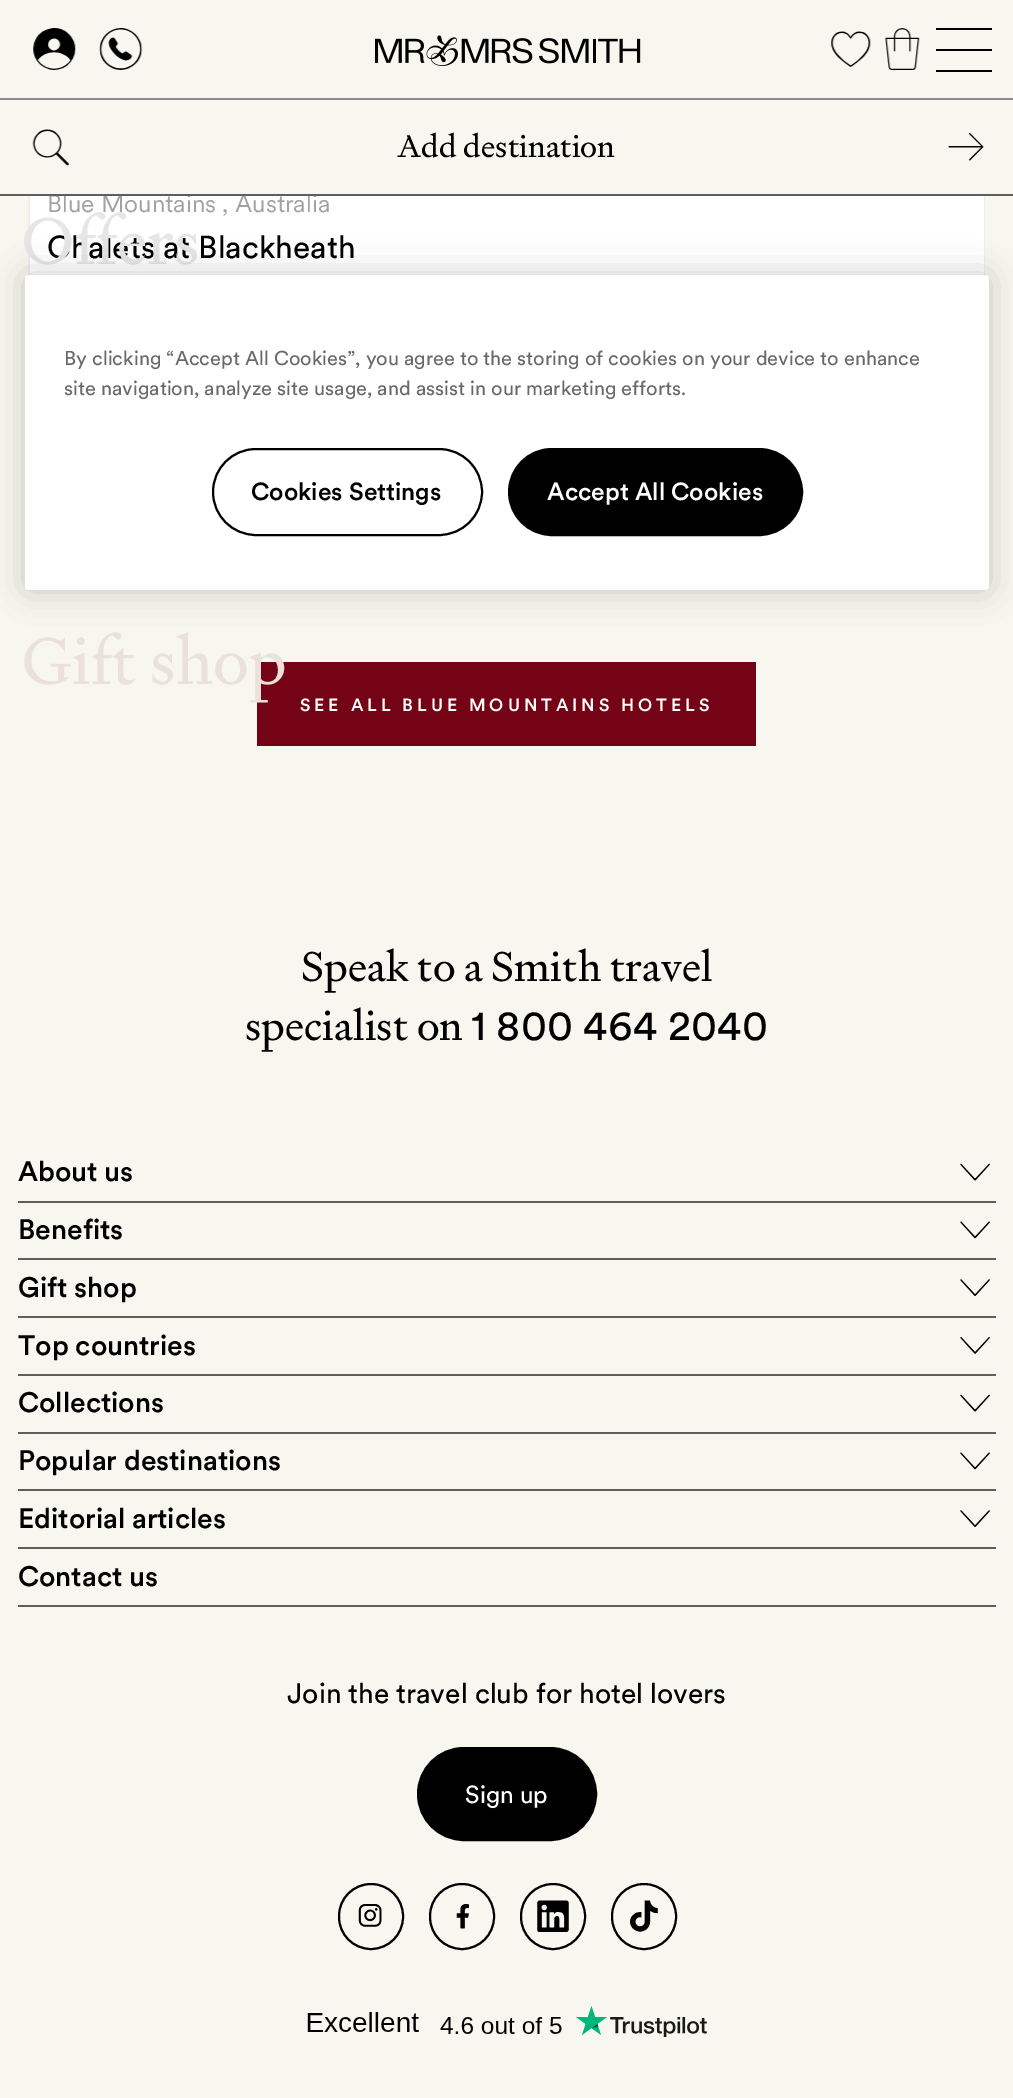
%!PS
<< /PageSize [1013 2098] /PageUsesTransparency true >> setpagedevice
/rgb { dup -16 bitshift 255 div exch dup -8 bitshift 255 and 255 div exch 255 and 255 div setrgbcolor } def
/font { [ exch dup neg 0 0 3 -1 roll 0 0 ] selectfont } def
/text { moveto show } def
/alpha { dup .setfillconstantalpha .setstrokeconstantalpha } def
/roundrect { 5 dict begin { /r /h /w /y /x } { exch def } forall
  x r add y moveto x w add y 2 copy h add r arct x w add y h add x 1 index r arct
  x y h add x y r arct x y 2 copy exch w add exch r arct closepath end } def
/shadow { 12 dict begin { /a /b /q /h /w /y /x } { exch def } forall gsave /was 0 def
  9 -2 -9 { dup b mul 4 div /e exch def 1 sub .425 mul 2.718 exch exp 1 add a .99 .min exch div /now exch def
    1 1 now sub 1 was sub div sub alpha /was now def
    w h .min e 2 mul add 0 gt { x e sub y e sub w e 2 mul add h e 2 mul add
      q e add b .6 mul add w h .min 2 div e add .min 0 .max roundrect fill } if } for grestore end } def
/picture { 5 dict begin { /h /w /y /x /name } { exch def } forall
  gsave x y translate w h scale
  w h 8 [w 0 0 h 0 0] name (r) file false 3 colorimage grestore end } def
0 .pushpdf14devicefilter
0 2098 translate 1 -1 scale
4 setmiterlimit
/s1 { /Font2-Regular 24.5 font 16#A2A2A2 rgb } def
/s2 { /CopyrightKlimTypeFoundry-Regular 31.5 font 16#000000 rgb } def
/s3 { /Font-Regular 31.5 font 16#000000 rgb } def
/s4 { /CopyrightKlimTypeFoundry-Regular 66.5 font 16#E6E6E6 rgb } def
/s5 { /CopyrightKlimTypeFoundry-Regular 66.5 font 16#EBE0DA rgb } def
/s6 { /CopyrightKlimTypeFoundry-Regular 42 font 16#000000 rgb } def
/s7 { /Font-Regular 42 font 16#000000 rgb } def
/s8 { /Font-Medium 28 font 16#000000 rgb } def
/s9 { /Font-Regular 28 font 16#000000 rgb } def
/s10 { /Font-Regular 24.5 font 16#FFFFFF rgb } def
/s11 { /Font-Regular 19.9 font 16#696969 rgb } def
/s12 { /Font-Medium 24.5 font 16#000000 rgb } def
/s13 { /Font-Medium 24.5 font 16#FFFFFF rgb } def
16#F7F7EF rgb
0 0 1013 2098 rectfill
16#FFFFFF rgb
30 196 954 79 rectfill
s1
(Blue Mountains , Australia) 47 212 text
16#605E5C rgb
0 194 1013 2 rectfill
(pic1.raw) 32 129 37 37 picture
s2
(Add destination) 397 157 text
(pic2.raw) 948 133 36 28 picture
16#EEEEEE rgb
984 196 1 79 rectfill
28 196 2 80 rectfill
s3
(Chalets at Blackheath) 47 258 text
16#740316 rgb
257 662 499 84 rectfill
/Font-Medium 17.5 font
16#FFFFFF rgb
300 711 moveto 3.9 0 (SEE ALL BLUE MOUNTAINS HOTELS) ashow
16#8C8C8C rgb
0 98 1013 2 rectfill
(pic3.raw) 33 28 43 42 picture
(pic4.raw) 99 28 44 42 picture
(pic5.raw) 375 35 266 31 picture
(pic6.raw) 831 31 40 36 picture
(pic7.raw) 885 28 35 42 picture
16#000000 rgb
936 28 56 2 rectfill
936 49 56 2 rectfill
936 70 56 2 rectfill
s4
(Offers) 21 264 text
s5
(Gift shop) 21 684 text
s6
(Speak to a Smith travel) 301 981 text
(specialist on) 245 1040 text
s7
(1 800 464 2040) 471 1040 text
16#605E5C rgb
18 1201 978 2 rectfill
s8
(About us) 18 1181 text
(pic8.raw) 960 1163 30 18 picture
16#605E5C rgb
18 1258 978 2 rectfill
s8
(Benefits) 18 1239 text
(pic9.raw) 960 1221 30 18 picture
16#605E5C rgb
18 1316 978 2 rectfill
s8
(Gift shop) 18 1297 text
(pic10.raw) 960 1279 30 17 picture
16#605E5C rgb
18 1374 978 2 rectfill
s8
(Top countries) 18 1355 text
(pic11.raw) 960 1337 30 17 picture
16#605E5C rgb
18 1432 978 2 rectfill
s8
(Collections) 18 1412 text
(pic8.raw) 960 1394 30 18 picture
16#605E5C rgb
18 1489 978 2 rectfill
s8
(Popular destinations) 18 1470 text
(pic9.raw) 960 1452 30 18 picture
16#605E5C rgb
18 1547 978 2 rectfill
s8
(Editorial articles) 18 1528 text
(pic10.raw) 960 1510 30 17 picture
16#605E5C rgb
18 1605 978 2 rectfill
s8
(Contact us) 18 1586 text
s9
(Join the travel club for hotel lovers) 287 1703 text
418 1748 178 92 46 roundrect gsave fill grestore
2 setlinewidth
stroke
s10
(Sign up) 465 1803 text
16#000000 rgb
339 1884 64 65 32 roundrect stroke
(pic12.raw) 358 1904 24 23 picture
430 1884 64 65 32 roundrect stroke
(pic13.raw) 456 1904 13 25 picture
521 1884 64 65 32 roundrect stroke
(pic14.raw) 537 1900 32 32 picture
612 1884 64 65 32 roundrect stroke
(pic15.raw) 630 1900 28 32 picture
(pic16.raw) 307 2006 400 31 picture
25 275 964 315 4 16 0.2 shadow
16#FFFFFF rgb
25 275 964 315 4 roundrect fill
s11
(By clicking “Accept All Cookies”, you agree to the storing of cookies on your device to enhance) 64 365 text
(site navigation, analyze site usage, and assist in our marketing efforts.) 64 395 text
16#000000 rgb
213 449 269 86 43 roundrect stroke
s12
(Cookies Settings) 251 500 text
509 449 293 86 43 roundrect gsave fill grestore
stroke
s13
(Accept All Cookies) 547 500 text
.poppdf14devicefilter showpage
